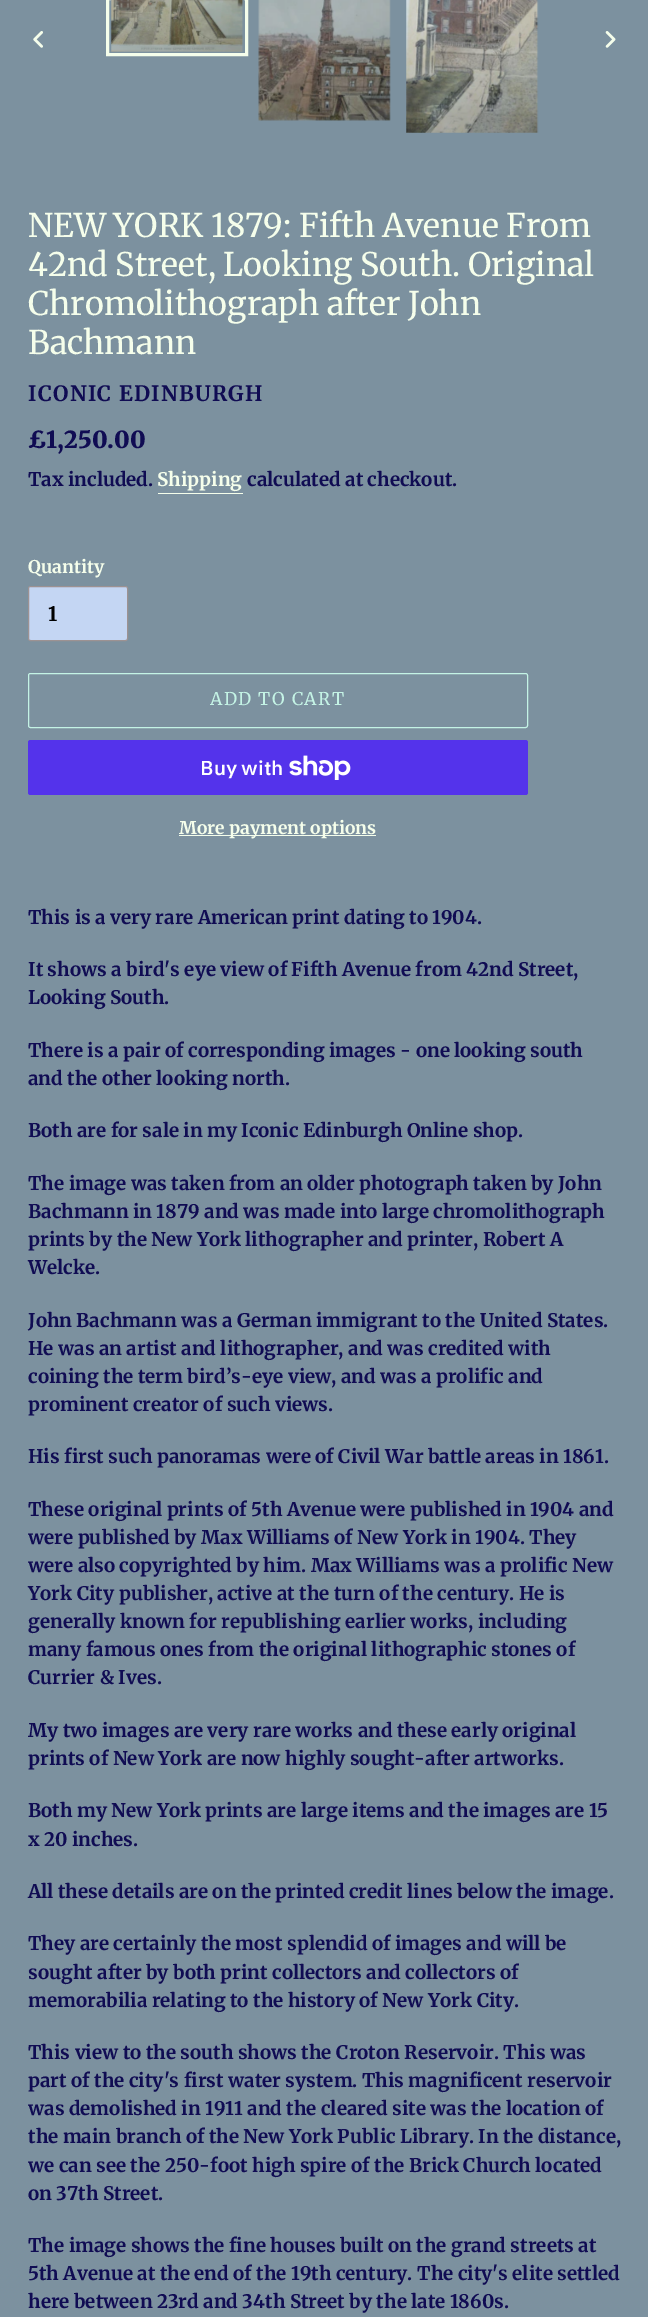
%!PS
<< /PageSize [648 2317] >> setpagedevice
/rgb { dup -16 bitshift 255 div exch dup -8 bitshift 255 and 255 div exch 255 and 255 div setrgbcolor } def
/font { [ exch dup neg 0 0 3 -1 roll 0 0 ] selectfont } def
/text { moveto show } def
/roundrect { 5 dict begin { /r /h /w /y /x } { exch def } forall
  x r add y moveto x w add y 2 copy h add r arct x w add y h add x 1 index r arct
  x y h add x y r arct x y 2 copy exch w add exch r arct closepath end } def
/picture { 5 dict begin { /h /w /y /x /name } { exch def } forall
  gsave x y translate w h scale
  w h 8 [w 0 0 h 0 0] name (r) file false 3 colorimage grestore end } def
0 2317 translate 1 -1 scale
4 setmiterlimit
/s1 { /Merriweather-Regular 32.5 font 16#F5FEEB rgb } def
/s2 { /Merriweather-Black 23.5 font 16#100C53 rgb } def
/s3 { /Merriweather-Bold 18.75 font 16#100C53 rgb } def
/s4 { /Merriweather-Bold 18.75 font 16#F5FEEB rgb } def
/s5 { /Merriweather-Bold 17.5 font 16#F5FEEB rgb } def
/s6 { /Merriweather-Bold 20 font 16#000000 rgb } def
/s7 { /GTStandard-SemiBold 20 font 16#FFFFFF rgb } def
16#7C919F rgb
0 0 648 2317 rectfill
(pic1.raw) 33 31 10 17 picture
16#F5FEEB rgb
3 setlinewidth
107.5 -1.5 139 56 rectstroke
(pic2.raw) 111 0 133 52 picture
(pic3.raw) 258 0 133 121 picture
(pic4.raw) 406 0 133 133 picture
(pic5.raw) 605 31 11 17 picture
s1
(NEW YORK 1879: Fifth Avenue From) 28 237 text
(42nd Street, Looking South. Original) 28 276 text
(Chromolithograph after John) 28 315 text
(Bachmann) 28 354 text
/Merriweather-Bold 21.1 font
16#100C53 rgb
28 401 moveto 1.25 0 (ICONIC EDINBURGH) ashow
s2
(£1,250.00) 28 448 text
s3
(Tax included.) 28 486 text
s4
(Shipping) 157 486 text
158 493 85 1 rectfill
s3
(calculated at checkout.) 247 486 text
s5
(Quantity) 28 573 text
16#C4D6F3 rgb
28.5 586.5 99 54 2 roundrect gsave fill grestore
16#9D9292 rgb
1 setlinewidth
stroke
s6
(1) 48 621 text
16#C4F3E5 rgb
28.5 673.5 499 54 2 roundrect stroke
/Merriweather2-Regular 17.5 font
210 705 moveto 1.4 0 (ADD TO CART) ashow
16#5433EB rgb
28 740 500 55 2.5 roundrect fill
s7
(Buy with) 200 775 text
(pic6.raw) 289 755 62 25 picture
16#F5FEEB rgb
179 835 197 1 rectfill
s5
(More payment options) 179 834 text
s3
(This is a very rare American print dating to 1904.) 28 924 text
(It shows a bird's eye view of Fifth Avenue from 42nd Street,) 28 976 text
(Looking South.) 28 1004 text
(There is a pair of corresponding images - one looking south) 28 1057 text
(and the other looking north.) 28 1085 text
(Both are for sale in my Iconic Edinburgh Online shop.) 28 1137 text
(The image was taken from an older photograph taken by John) 28 1190 text
(Bachmann in 1879 and was made into large chromolithograph) 28 1218 text
(prints by the New York lithographer and printer, Robert A) 28 1246 text
(Welcke.) 28 1274 text
(John Bachmann was a German immigrant to the United States.) 28 1327 text
(He was an artist and lithographer, and was credited with) 28 1355 text
(coining the term bird’s-eye view, and was a prolific and) 28 1383 text
(prominent creator of such views.) 28 1411 text
(His first such panoramas were of Civil War battle areas in 1861.) 28 1463 text
(These original prints of 5th Avenue were published in 1904 and) 28 1516 text
(were published by Max Williams of New York in 1904. They) 28 1544 text
(were also copyrighted by him. Max Williams was a prolific New) 28 1572 text
(York City publisher, active at the turn of the century. He is) 28 1600 text
(generally known for republishing earlier works, including) 28 1628 text
(many famous ones from the original lithographic stones of) 28 1656 text
(Currier & Ives.) 28 1684 text
(My two images are very rare works and these early original) 28 1737 text
(prints of New York are now highly sought-after artworks.) 28 1765 text
(Both my New York prints are large items and the images are 15) 28 1817 text
(x 20 inches.) 28 1846 text
(All these details are on the printed credit lines below the image.) 28 1898 text
(They are certainly the most splendid of images and will be) 28 1950 text
(sought after by both print collectors and collectors of) 28 1979 text
(memorabilia relating to the history of New York City.) 28 2007 text
(This view to the south shows the Croton Reservoir. This was) 28 2059 text
(part of the city's first water system. This magnificent reservoir) 28 2087 text
(was demolished in 1911 and the cleared site was the location of) 28 2115 text
(the main branch of the New York Public Library. In the distance,) 28 2143 text
(we can see the 250-foot high spire of the Brick Church located) 28 2172 text
(on 37th Street.) 28 2200 text
(The image shows the fine houses built on the grand streets at) 28 2252 text
(5th Avenue at the end of the 19th century. The city's elite settled) 28 2280 text
(here between 23rd and 34th Street by the late 1860s.) 28 2308 text
showpage
